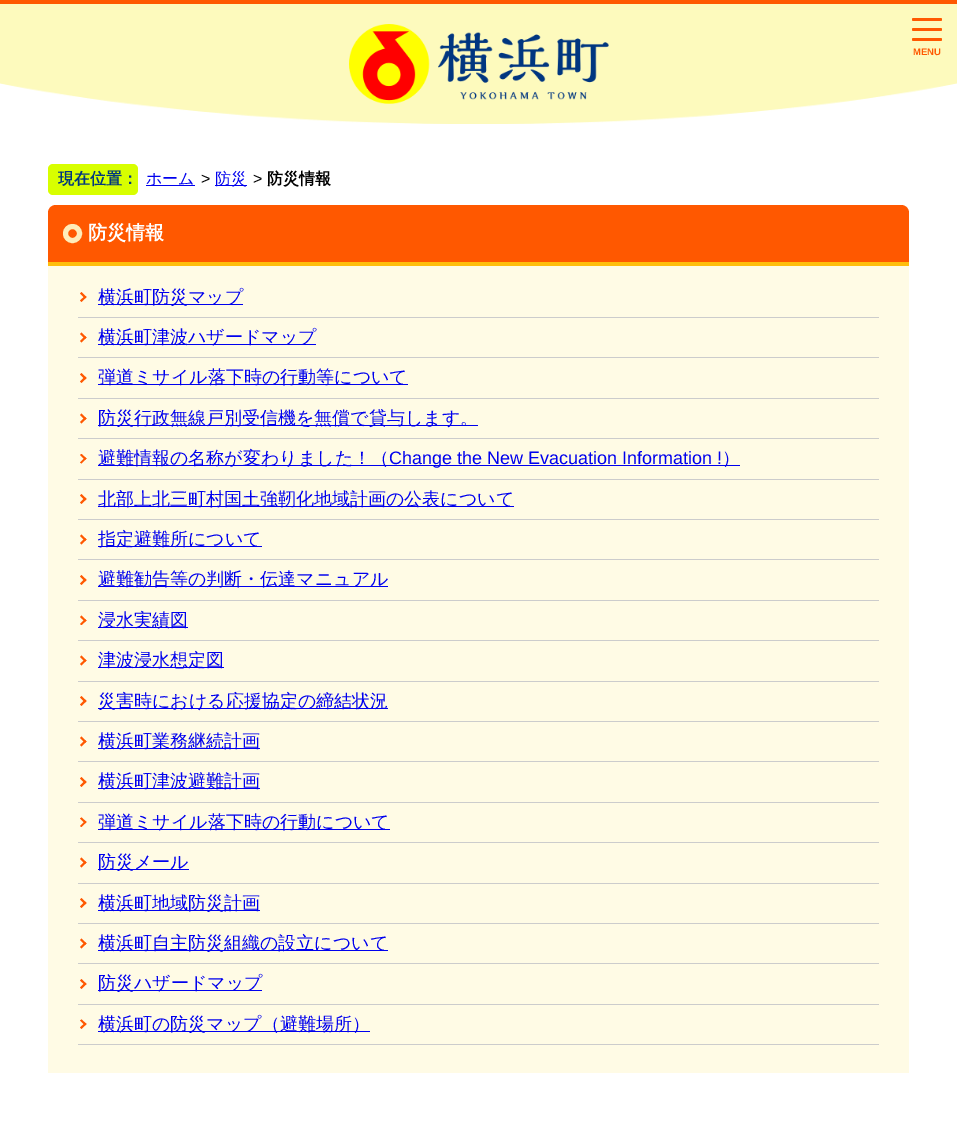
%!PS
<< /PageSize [957 1124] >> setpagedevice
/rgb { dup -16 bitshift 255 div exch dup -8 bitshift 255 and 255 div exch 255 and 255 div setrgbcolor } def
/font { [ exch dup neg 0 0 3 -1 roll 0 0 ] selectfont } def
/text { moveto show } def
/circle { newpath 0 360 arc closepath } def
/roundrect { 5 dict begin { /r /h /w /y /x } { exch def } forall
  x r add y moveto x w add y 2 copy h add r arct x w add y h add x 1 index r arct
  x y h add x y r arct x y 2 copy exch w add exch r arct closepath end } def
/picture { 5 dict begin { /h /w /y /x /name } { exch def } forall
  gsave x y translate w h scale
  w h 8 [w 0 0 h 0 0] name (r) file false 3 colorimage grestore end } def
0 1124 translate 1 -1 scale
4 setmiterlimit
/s1 { /LiberationSans-Bold 9.5 font 16#FF5800 rgb } def
/s2 { /WenQuanYiZenHei-Bold 16 font 16#003680 rgb } def
/s3 { /WenQuanYiZenHei-Medium 16 font 16#0000EE rgb } def
/s4 { /LiberationSans-Regular 16 font 16#000000 rgb } def
/s5 { /WenQuanYiZenHei-Bold 16 font 16#000000 rgb } def
/s6 { /WenQuanYiZenHei-Bold 19 font 16#FFFFFF rgb } def
/s7 { /WenQuanYiZenHei-Medium 18 font 16#0000EE rgb } def
/s8 { /LiberationSans-Regular 18 font 16#0000EE rgb } def
16#FFFFFF rgb
0 0 957 1124 rectfill
(pic1.raw) 0 4 957 120 picture
16#FF5800 rgb
0 0 957 4 rectfill
(pic2.raw) 349 24 260 80 picture
912 18 30 3 1.5 roundrect fill
912 28 30 3 1.5 roundrect fill
912 38 30 3 1.5 roundrect fill
s1
(MENU) 913 55 text
16#D8FF00 rgb
48 164 90 31 5 roundrect fill
s2
(現在位置：) 58 184 text
16#0000EE rgb
146 185 49 1 rectfill
s3
(ホーム) 146 184 text
s4
(>) 201 184 text
16#0000EE rgb
215 185 32 1 rectfill
s3
(防災) 215 184 text
s4
(>) 253 184 text
s5
(防災情報) 267 184 text
16#FF5800 rgb
56 205 moveto 901 205 lineto 905.5 205 909 208.5 909 213 curveto 909 266 lineto 48 266 lineto 48 213 lineto 48 208.5 51.5 205 56 205 curveto closepath fill
16#FFBE0C rgb
48 262 861 4 rectfill
16#FFECB9 rgb
5 setlinewidth
72.5 233.5 7 circle stroke
s6
(防災情報) 88 239 text
16#FFFBE5 rgb
48 266 861 807 rectfill
16#CCCCCC rgb
78 317 801 1 rectfill
16#FF5800 rgb
81.5 292 moveto 86.5 297 lineto 85 298.5 lineto 80 293.5 lineto closepath fill
85 296 moveto 86.5 297 lineto 81.5 302 lineto 80 300.5 lineto closepath fill
16#0000EE rgb
98 304 145 1 rectfill
s7
(横浜町防災マップ) 98 303 text
16#CCCCCC rgb
78 357 801 1 rectfill
16#FF5800 rgb
81.5 332.5 moveto 86.5 337.5 lineto 85 339 lineto 80 334 lineto closepath fill
85 336 moveto 86.5 337.5 lineto 81.5 342.5 lineto 80 341 lineto closepath fill
16#0000EE rgb
98 344 218 1 rectfill
(横浜町津波ハザードマップ) 98 343 text
16#CCCCCC rgb
78 398 801 1 rectfill
16#FF5800 rgb
81.5 373 moveto 86.5 378 lineto 85 379.5 lineto 80 374.5 lineto closepath fill
85 376.5 moveto 86.5 378 lineto 81.5 383 lineto 80 381.5 lineto closepath fill
16#0000EE rgb
98 384 310 1 rectfill
(弾道ミサイル落下時の行動等について) 98 383 text
16#CCCCCC rgb
78 438 801 1 rectfill
16#FF5800 rgb
81.5 413.5 moveto 86.5 418.5 lineto 85 420 lineto 80 415 lineto closepath fill
85 417 moveto 86.5 418.5 lineto 81.5 423.5 lineto 80 422 lineto closepath fill
16#0000EE rgb
98 425 380 1 rectfill
(防災行政無線戸別受信機を無償で貸与します。) 98 424 text
16#CCCCCC rgb
78 479 801 1 rectfill
16#FF5800 rgb
81.5 454 moveto 86.5 458.5 lineto 85 460 lineto 80 455 lineto closepath fill
85 457.5 moveto 86.5 458.5 lineto 81.5 463.5 lineto 80 462.5 lineto closepath fill
16#0000EE rgb
98 465 642 1 rectfill
(避難情報の名称が変わりました！（) 98 464 text
s8
(Change the New Evacuation Information !) 389 464 text
s7
(）) 722 464 text
16#CCCCCC rgb
78 519 801 1 rectfill
16#FF5800 rgb
81.5 494 moveto 86.5 499 lineto 85 500.5 lineto 80 495.5 lineto closepath fill
85 497.5 moveto 86.5 499 lineto 81.5 504 lineto 80 502.5 lineto closepath fill
16#0000EE rgb
98 506 416 1 rectfill
(北部上北三町村国土強靭化地域計画の公表について) 98 505 text
16#CCCCCC rgb
78 559 801 1 rectfill
16#FF5800 rgb
81.5 534.5 moveto 86.5 539.5 lineto 85 541 lineto 80 536 lineto closepath fill
85 538 moveto 86.5 539.5 lineto 81.5 544.5 lineto 80 543 lineto closepath fill
16#0000EE rgb
98 546 164 1 rectfill
(指定避難所について) 98 545 text
16#CCCCCC rgb
78 600 801 1 rectfill
16#FF5800 rgb
81.5 575 moveto 86.5 580 lineto 85 581.5 lineto 80 576.5 lineto closepath fill
85 578.5 moveto 86.5 580 lineto 81.5 585 lineto 80 583.5 lineto closepath fill
16#0000EE rgb
98 586 290 1 rectfill
(避難勧告等の判断・伝達マニュアル) 98 585 text
16#CCCCCC rgb
78 640 801 1 rectfill
16#FF5800 rgb
81.5 615.5 moveto 86.5 620.5 lineto 85 621.5 lineto 80 617 lineto closepath fill
85 619 moveto 86.5 620.5 lineto 81.5 625 lineto 80 624 lineto closepath fill
16#0000EE rgb
98 627 90 1 rectfill
(浸水実績図) 98 626 text
16#CCCCCC rgb
78 681 801 1 rectfill
16#FF5800 rgb
81.5 655.5 moveto 86.5 660.5 lineto 85 662 lineto 80 657 lineto closepath fill
85 659.5 moveto 86.5 660.5 lineto 81.5 665.5 lineto 80 664 lineto closepath fill
16#0000EE rgb
98 667 126 1 rectfill
(津波浸水想定図) 98 666 text
16#CCCCCC rgb
78 721 801 1 rectfill
16#FF5800 rgb
81.5 696 moveto 86.5 701 lineto 85 702.5 lineto 80 697.5 lineto closepath fill
85 699.5 moveto 86.5 701 lineto 81.5 706 lineto 80 704.5 lineto closepath fill
16#0000EE rgb
98 708 290 1 rectfill
(災害時における応援協定の締結状況) 98 707 text
16#CCCCCC rgb
78 761 801 1 rectfill
16#FF5800 rgb
81.5 736.5 moveto 86.5 741.5 lineto 85 743 lineto 80 738 lineto closepath fill
85 740 moveto 86.5 741.5 lineto 81.5 746.5 lineto 80 745 lineto closepath fill
16#0000EE rgb
98 748 162 1 rectfill
(横浜町業務継続計画) 98 747 text
16#CCCCCC rgb
78 802 801 1 rectfill
16#FF5800 rgb
81.5 777 moveto 86.5 782 lineto 85 783.5 lineto 80 778.5 lineto closepath fill
85 780.5 moveto 86.5 782 lineto 81.5 787 lineto 80 785.5 lineto closepath fill
16#0000EE rgb
98 788 162 1 rectfill
(横浜町津波避難計画) 98 787 text
16#CCCCCC rgb
78 842 801 1 rectfill
16#FF5800 rgb
81.5 817.5 moveto 86.5 822 lineto 85 823.5 lineto 80 818.5 lineto closepath fill
85 821 moveto 86.5 822 lineto 81.5 827 lineto 80 826 lineto closepath fill
16#0000EE rgb
98 829 292 1 rectfill
(弾道ミサイル落下時の行動について) 98 828 text
16#CCCCCC rgb
78 883 801 1 rectfill
16#FF5800 rgb
81.5 857.5 moveto 86.5 862.5 lineto 85 864 lineto 80 859 lineto closepath fill
85 861 moveto 86.5 862.5 lineto 81.5 867.5 lineto 80 866 lineto closepath fill
16#0000EE rgb
98 869 91 1 rectfill
(防災メール) 98 868 text
16#CCCCCC rgb
78 923 801 1 rectfill
16#FF5800 rgb
81.5 898 moveto 86.5 903 lineto 85 904.5 lineto 80 899.5 lineto closepath fill
85 901.5 moveto 86.5 903 lineto 81.5 908 lineto 80 906.5 lineto closepath fill
16#0000EE rgb
98 910 162 1 rectfill
(横浜町地域防災計画) 98 909 text
16#CCCCCC rgb
78 963 801 1 rectfill
16#FF5800 rgb
81.5 938.5 moveto 86.5 943.5 lineto 85 945 lineto 80 940 lineto closepath fill
85 942 moveto 86.5 943.5 lineto 81.5 948.5 lineto 80 947 lineto closepath fill
16#0000EE rgb
98 950 290 1 rectfill
(横浜町自主防災組織の設立について) 98 949 text
16#CCCCCC rgb
78 1004 801 1 rectfill
16#FF5800 rgb
81.5 979 moveto 86.5 984 lineto 85 985 lineto 80 980.5 lineto closepath fill
85 982.5 moveto 86.5 984 lineto 81.5 989 lineto 80 987.5 lineto closepath fill
16#0000EE rgb
98 990 164 1 rectfill
(防災ハザードマップ) 98 989 text
16#CCCCCC rgb
78 1044 801 1 rectfill
16#FF5800 rgb
81.5 1019.5 moveto 86.5 1024 lineto 85 1025.5 lineto 80 1020.5 lineto closepath fill
85 1023 moveto 86.5 1024 lineto 81.5 1029 lineto 80 1027.5 lineto closepath fill
16#0000EE rgb
98 1031 272 1 rectfill
(横浜町の防災マップ（避難場所）) 98 1030 text
showpage
